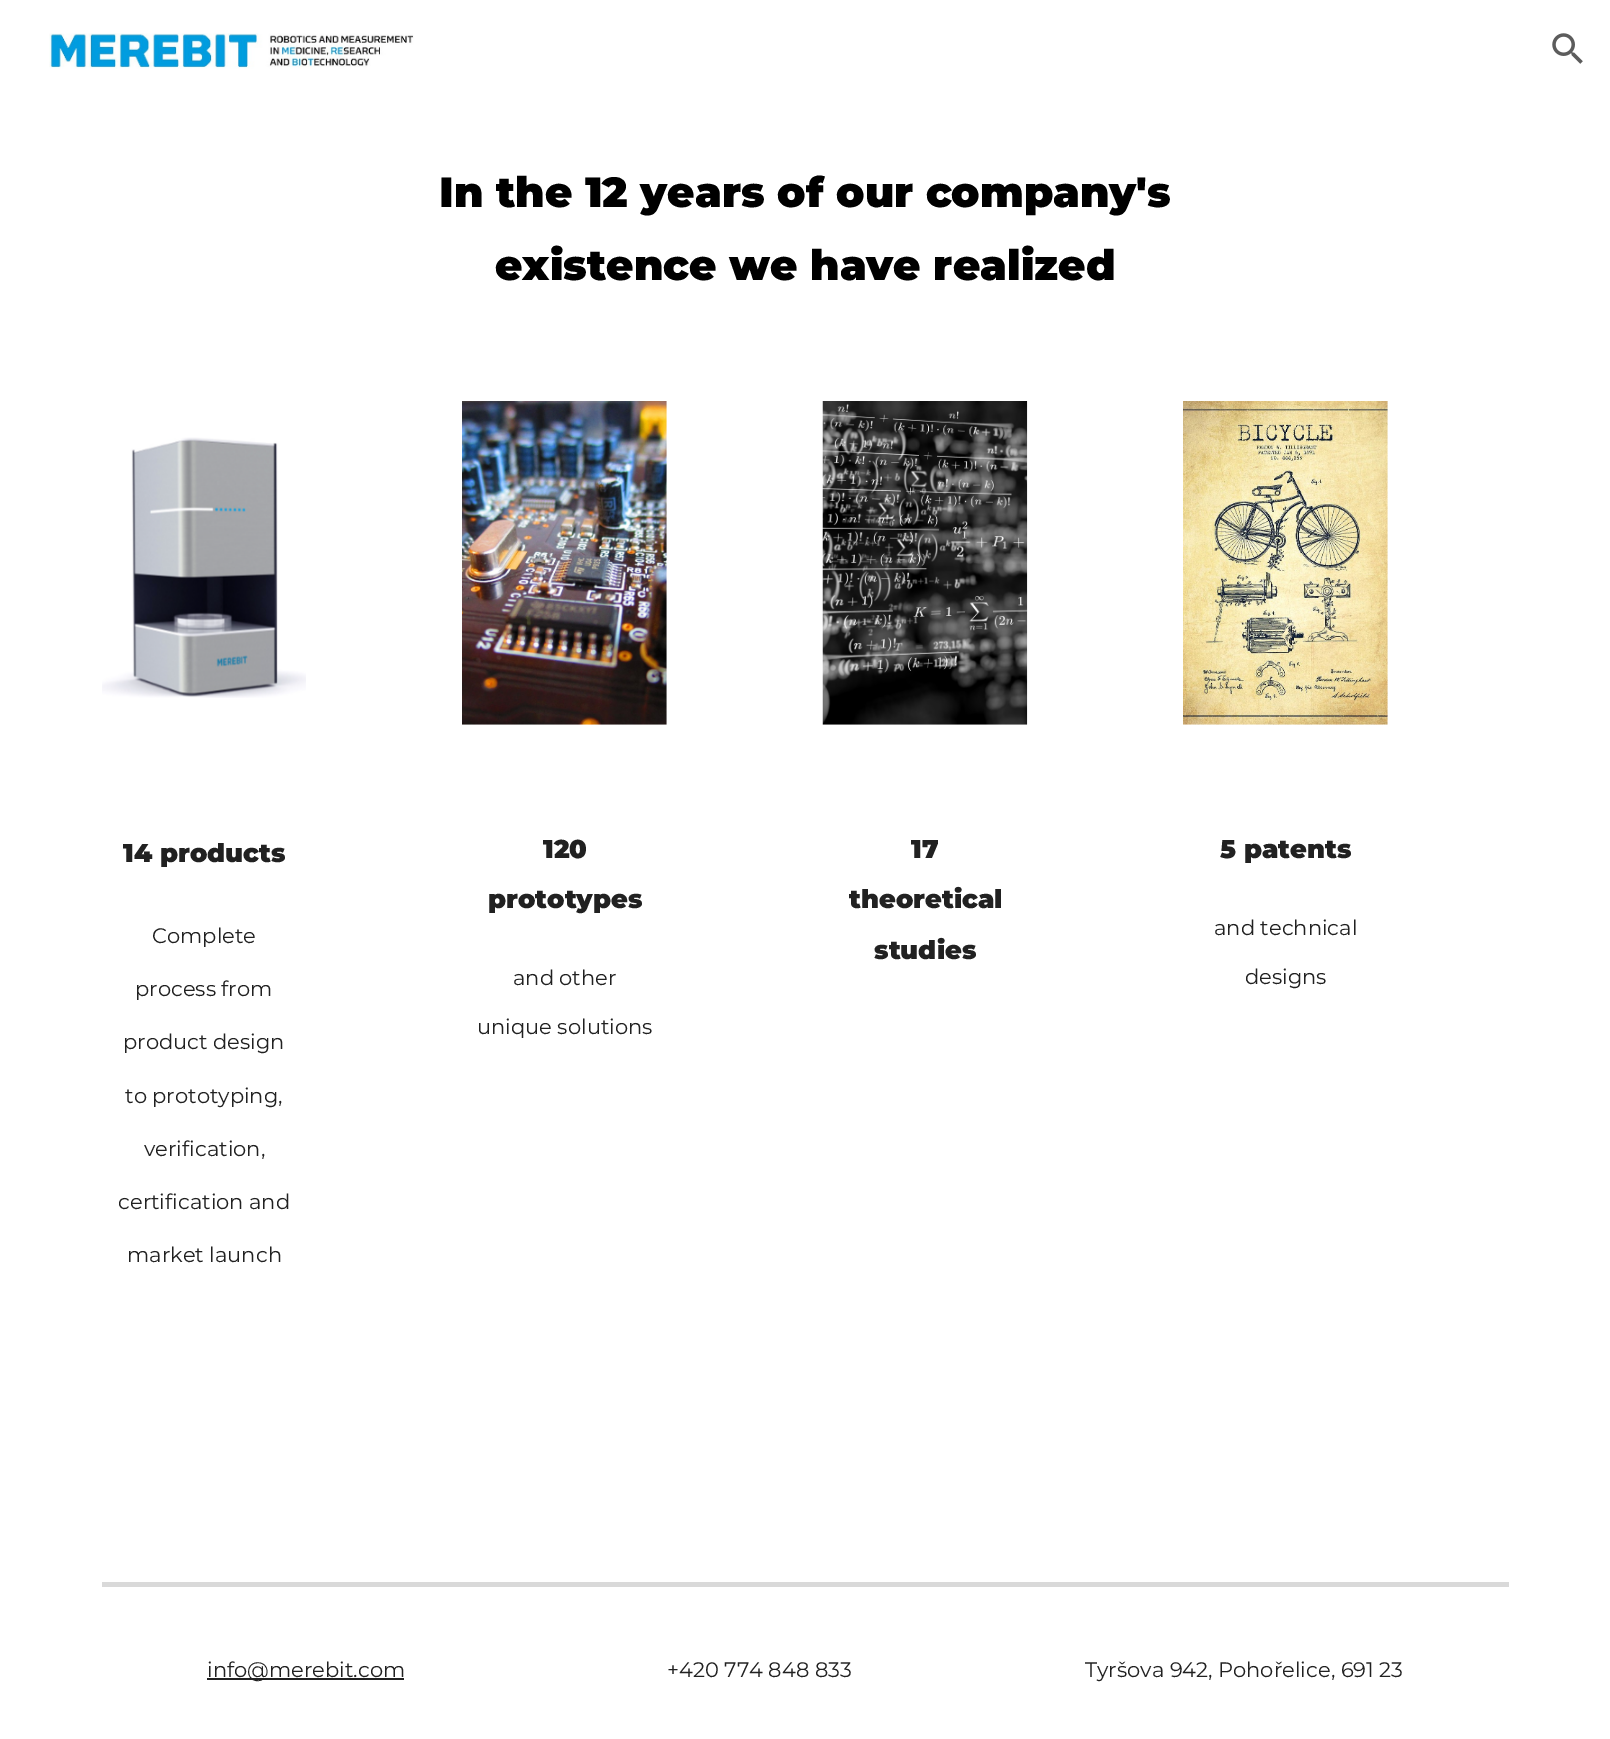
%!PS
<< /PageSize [1610 1739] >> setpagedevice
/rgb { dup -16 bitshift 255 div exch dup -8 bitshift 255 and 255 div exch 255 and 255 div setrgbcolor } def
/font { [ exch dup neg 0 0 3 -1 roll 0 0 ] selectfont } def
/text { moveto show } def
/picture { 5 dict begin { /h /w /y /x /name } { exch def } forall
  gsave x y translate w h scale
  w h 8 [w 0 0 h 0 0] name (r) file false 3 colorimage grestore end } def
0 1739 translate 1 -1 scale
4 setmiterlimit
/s1 { /Montserrat-Black 42 font 16#000000 rgb } def
/s2 { /Montserrat-Black 25.75 font 16#212121 rgb } def
/s3 { /Montserrat-Regular 21 font 16#212121 rgb } def
16#FFFFFF rgb
0 0 1610 1739 rectfill
(pic1.raw) 49 33 365 36 picture
(pic2.raw) 1552 33 31 31 picture
s1
(In the 12 years of our company's) 439 207 text
(existence we have realized) 495 280 text
(pic3.raw) 102 437 204 261 picture
(pic4.raw) 462 401 205 324 picture
(pic5.raw) 822 401 206 324 picture
(pic6.raw) 1183 401 205 324 picture
s2
(14 products) 123 862 text
s3
(Complete) 152 943 text
(process from) 135 996 text
(product design) 123 1049 text
(to prototyping,) 125 1103 text
(verification,) 144 1156 text
(certification and) 118 1209 text
(market launch) 127 1262 text
s2
(120) 543 858 text
(prototypes) 488 908 text
s3
(and other) 513 985 text
(unique solutions) 477 1034 text
s2
(17) 911 858 text
(theoretical) 849 908 text
(studies) 874 959 text
(5 patents) 1220 858 text
s3
(and technical) 1214 935 text
(designs) 1245 984 text
16#D9D9D9 rgb
102 1582 1407 5 rectfill
16#212121 rgb
207 1678 197 2 rectfill
(info@merebit.com) 207 1677 text
(+420 774 848 833) 667 1677 text
(Tyršova 942, Pohořelice, 691 23) 1085 1677 text
showpage
